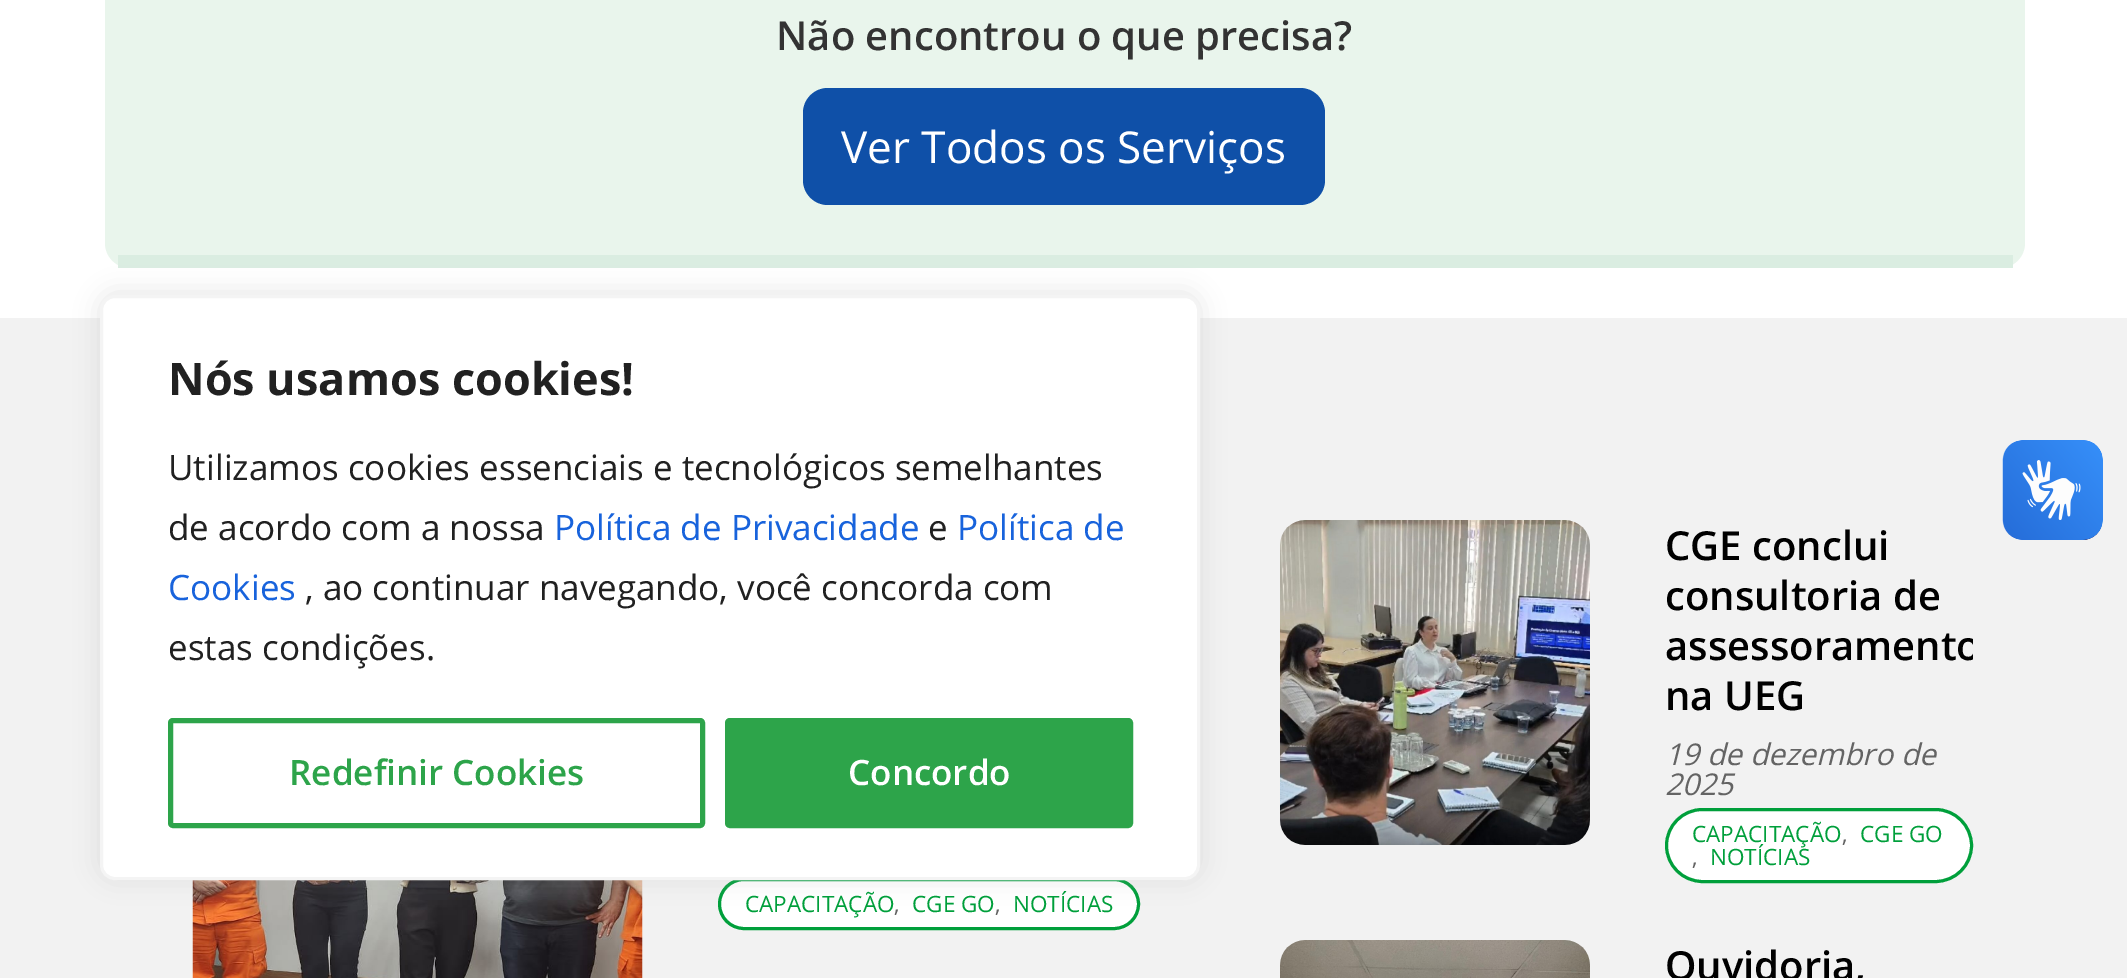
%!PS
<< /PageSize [2127 978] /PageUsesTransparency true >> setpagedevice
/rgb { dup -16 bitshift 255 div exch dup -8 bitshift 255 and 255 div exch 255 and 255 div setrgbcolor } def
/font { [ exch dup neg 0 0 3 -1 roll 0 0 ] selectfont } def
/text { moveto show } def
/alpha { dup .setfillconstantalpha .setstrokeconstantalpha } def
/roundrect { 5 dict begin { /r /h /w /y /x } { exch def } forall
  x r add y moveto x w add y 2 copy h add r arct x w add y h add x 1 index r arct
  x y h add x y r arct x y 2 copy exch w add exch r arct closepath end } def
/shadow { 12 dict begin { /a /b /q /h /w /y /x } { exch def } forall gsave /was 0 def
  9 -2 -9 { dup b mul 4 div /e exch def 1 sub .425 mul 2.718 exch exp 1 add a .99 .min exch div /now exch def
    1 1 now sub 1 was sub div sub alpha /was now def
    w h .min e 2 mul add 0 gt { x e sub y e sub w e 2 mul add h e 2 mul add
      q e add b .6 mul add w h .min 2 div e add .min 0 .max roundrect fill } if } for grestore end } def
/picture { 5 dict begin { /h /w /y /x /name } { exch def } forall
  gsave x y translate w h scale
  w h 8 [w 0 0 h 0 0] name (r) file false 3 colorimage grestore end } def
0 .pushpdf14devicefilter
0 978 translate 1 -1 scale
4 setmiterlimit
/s1 { /OpenSans-Bold 45 font 16#212121 rgb } def
/s2 { /OpenSans-Regular 35 font 16#212121 rgb } def
/s3 { /OpenSans-Regular 35 font 16#1863DC rgb } def
/s4 { /OpenSans-SemiBold 35 font 16#2DA44A rgb } def
/s5 { /OpenSans-SemiBold 35 font 16#FFFFFF rgb } def
/s6 { /OpenSans-SemiBold 40 font 16#333333 rgb } def
/s7 { /OpenSans-Regular 44 font 16#FFFFFF rgb } def
/s8 { /OpenSans-Regular 22.5 font 16#009F3B rgb } def
/s9 { /OpenSans-Regular 22.5 font 16#646464 rgb } def
/s10 { /OpenSans-SemiBold 40 font 16#000000 rgb } def
/s11 { /OpenSans-Italic 30 font 16#646464 rgb } def
16#FFFFFF rgb
0 0 2127 978 rectfill
16#E9F5EC rgb
105 -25 1920 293 25 roundrect fill
16#DAEDE1 rgb
118 255 1895 13 rectfill
16#F2F2F2 rgb
0 318 2127 660 rectfill
(pic3.raw) 192 880 451 98 picture
16#FFFFFF rgb
719.5 879.5 419 49 24.5 roundrect gsave fill grestore
16#009F3B rgb
3 setlinewidth
stroke
16#ACABAB rgb
100 293 1100 585 15 12.5 0.3 shadow
16#FFFFFF rgb
101.5 296.5 1097 582 13.5 roundrect gsave fill grestore
16#F4F4F4 rgb
stroke
s1
(Nós usamos cookies!) 168 395 text
s2
(Utilizamos cookies essenciais e tecnológicos semelhantes) 168 480 text
(de acordo com a nossa) 168 540 text
s3
(Política de Privacidade) 554 540 text
s2
(e) 928 540 text
s3
(Política de) 957 540 text
(Cookies) 168 600 text
s2
(, ao continuar navegando, você concorda com) 305 600 text
(estas condições.) 168 660 text
16#2DA44A rgb
5 setlinewidth
170.5 720.5 532 105 2.5 roundrect stroke
s4
(Redefinir Cookies) 289 785 text
727.5 720.5 403 105 2.5 roundrect gsave fill grestore
stroke
s5
(Concordo) 848 785 text
s6
(Não encontrou o que precisa?) 776 50 text
16#0F50A8 rgb
803 88 522 117 25 roundrect fill
s7
(Ver Todos os Serviços) 841 163 text
(pic1.raw) 2002 440 101 100 picture
(pic2.raw) 2003 440 100 100 picture
s8
(CAPACITAÇÃO) 745 912 text
s9
(,) 894 912 text
s8
(CGE GO) 912 912 text
s9
(,) 995 912 text
s8
(NOTÍCIAS) 1013 912 text
(pic4.raw) 1280 520 310 325 picture
s10
(CGE conclui) 1665 560 text
(consultoria de) 1665 610 text
gsave
1280 520 693 395 rectclip
(assessoramento) 1665 660 text
grestore
(na UEG) 1665 710 text
s11
(19 de dezembro de) 1665 765 text
(2025) 1665 795 text
16#FFFFFF rgb
1666.5 809.5 305 72 36 roundrect gsave fill grestore
16#009F3B rgb
3 setlinewidth
stroke
s8
(CAPACITAÇÃO) 1692 842 text
s9
(,) 1842 842 text
s8
(CGE GO) 1860 842 text
s9
(,) 1692 865 text
s8
(NOTÍCIAS) 1710 865 text
(pic5.raw) 1280 940 310 38 picture
s10
(Ouvidoria,) 1665 980 text
.poppdf14devicefilter showpage
